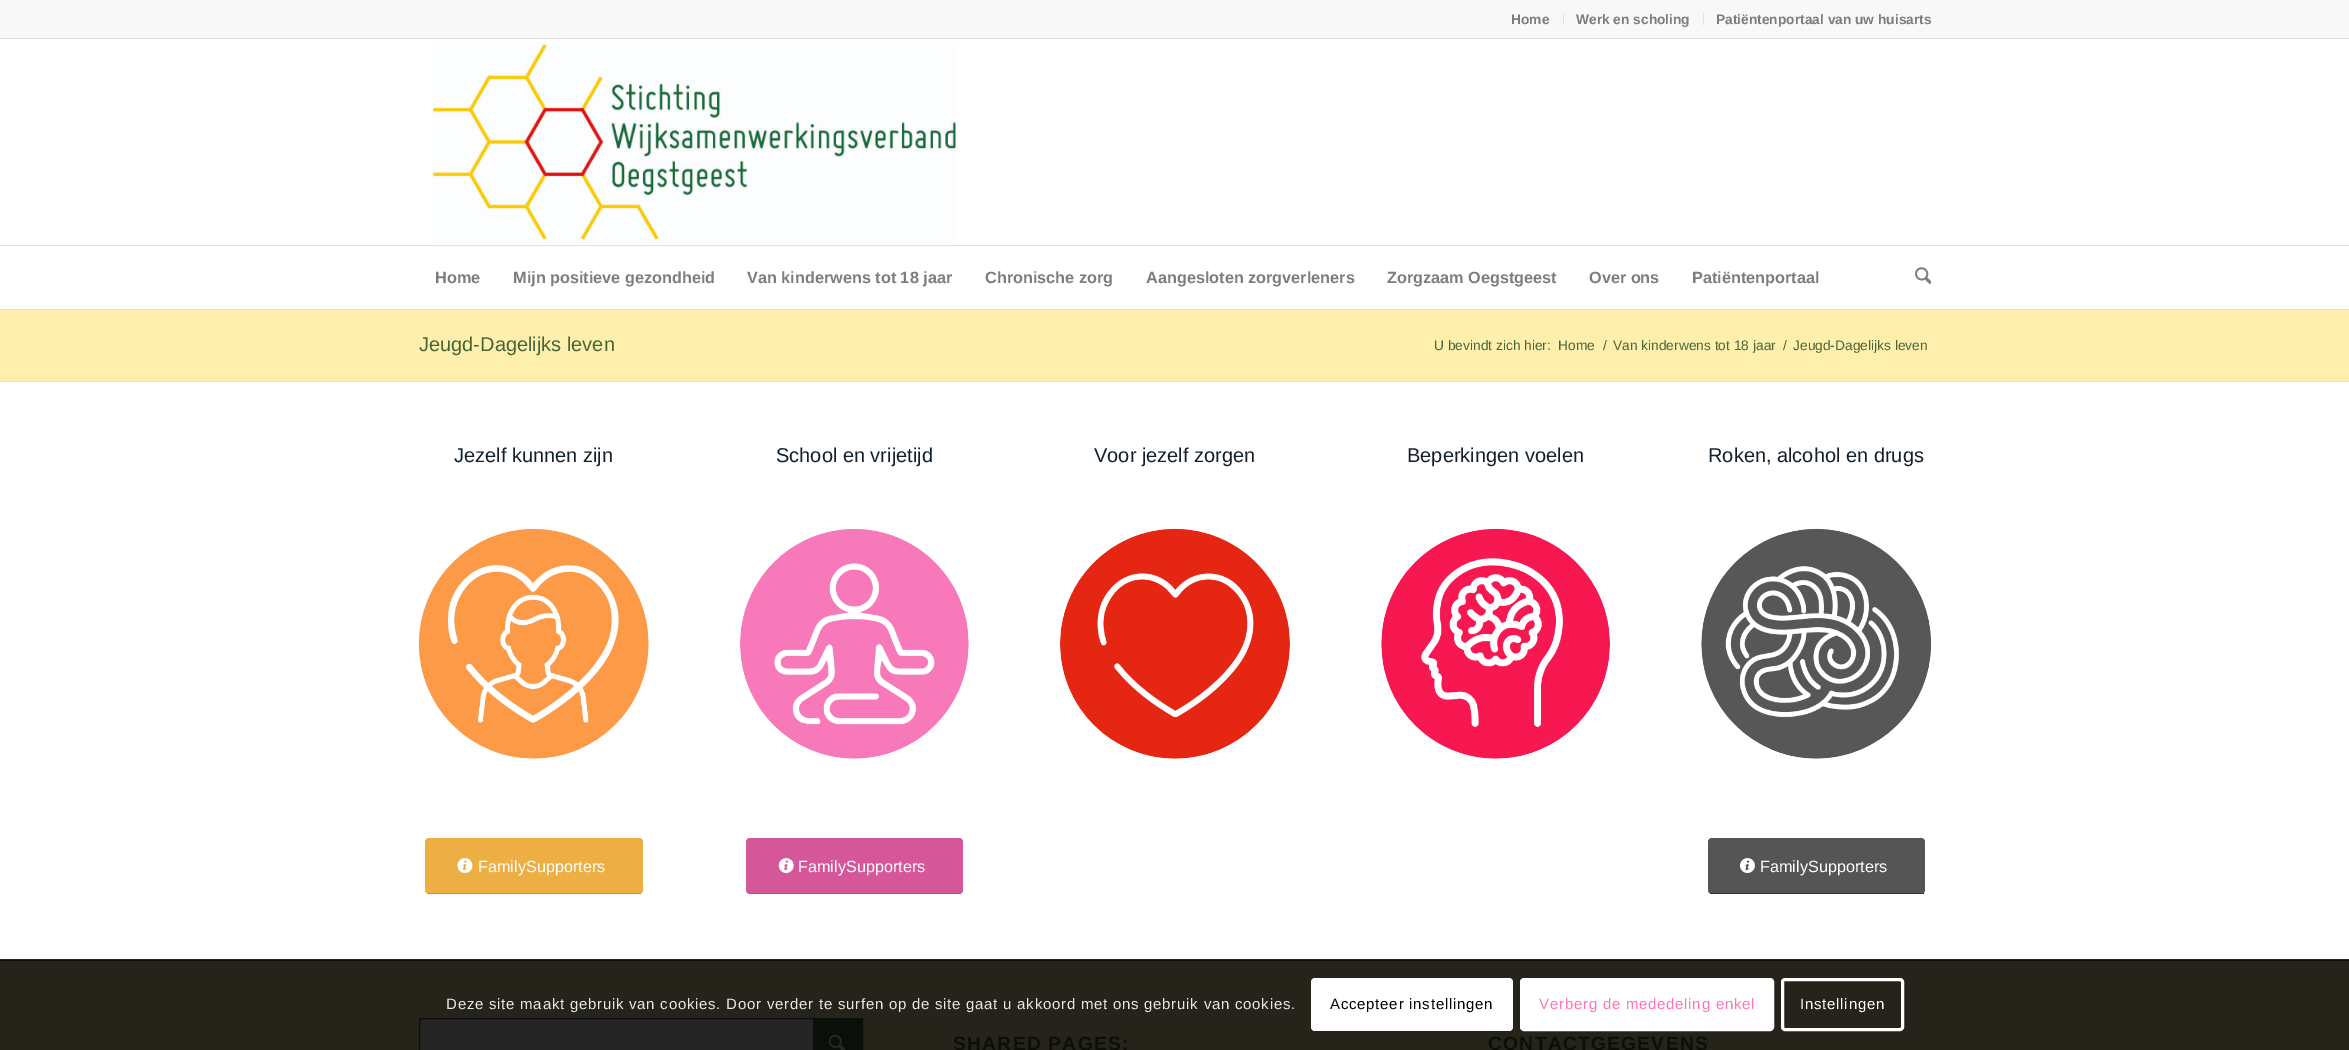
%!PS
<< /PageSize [2349 1050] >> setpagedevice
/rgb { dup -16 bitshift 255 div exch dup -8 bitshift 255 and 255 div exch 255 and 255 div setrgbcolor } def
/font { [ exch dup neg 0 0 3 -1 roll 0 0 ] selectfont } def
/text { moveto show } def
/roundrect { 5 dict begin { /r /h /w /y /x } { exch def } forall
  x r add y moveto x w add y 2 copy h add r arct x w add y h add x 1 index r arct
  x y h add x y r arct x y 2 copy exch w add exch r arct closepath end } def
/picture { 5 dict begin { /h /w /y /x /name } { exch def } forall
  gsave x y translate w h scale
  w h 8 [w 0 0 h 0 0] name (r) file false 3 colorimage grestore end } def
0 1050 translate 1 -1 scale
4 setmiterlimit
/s1 { /LiberationSans-Bold 13.75 font 16#7D7D7D rgb } def
/s2 { /LiberationSans-Bold 16.25 font 16#7D7D7D rgb } def
/s3 { /LiberationSans-Regular 20 font 16#486639 rgb } def
/s4 { /LiberationSans-Regular 13.75 font 16#486639 rgb } def
/s5 { /LiberationSans-Regular 20 font 16#11202A rgb } def
/s6 { /LiberationSans-Regular 16.25 font 16#FFFFFF rgb } def
16#FFFFFF rgb
0 0 2349 1050 rectfill
16#262626 rgb
0 959 2349 1 rectfill
16#F8F8F8 rgb
0 0 2349 38 rectfill
16#E1E1E1 rgb
0 38 2349 1 rectfill
1563 13 1 12 rectfill
s1
(Home) 1511 24 text
16#E1E1E1 rgb
1703 13 1 12 rectfill
s1
(Werk en scholing) 1576 24 text
(Patiëntenportaal van uw huisarts) 1716 24 text
16#E1E1E1 rgb
0 309 2349 1 rectfill
(pic1.raw) 432 42 526 201 picture
0 245 2349 1 rectfill
s2
(Home) 435 283 text
(Mijn positieve gezondheid) 513 283 text
(Van kinderwens tot 18 jaar) 747 283 text
(Chronische zorg) 985 283 text
(Aangesloten zorgverleners) 1146 283 text
(Zorgzaam Oegstgeest) 1387 283 text
(Over ons) 1589 283 text
(Patiëntenportaal) 1692 283 text
(pic2.raw) 1915 267 16 17 picture
16#FFEFAD rgb
0 310 2349 71 rectfill
s3
(Jeugd-Dagelijks leven) 419 351 text
s4
(U bevindt zich hier:) 1434 350 text
(Home) 1558 350 text
(/) 1603 350 text
(Van kinderwens tot 18 jaar) 1613 350 text
(/) 1783 350 text
(Jeugd-Dagelijks leven) 1793 350 text
16#E1E1E1 rgb
0 381 2349 1 rectfill
s5
(Jezelf kunnen zijn) 454 462 text
(pic3.raw) 418 528 231 231 picture
16#EDAE44 rgb
425 838 218 56 4 roundrect fill
16#CA9336 rgb
428 893 213 1 rectfill
(pic4.raw) 457 858 16 15 picture
s6
(FamilySupporters) 478 872 text
s5
(School en vrijetijd) 776 462 text
(pic5.raw) 740 528 229 231 picture
16#D65799 rgb
746 838 217 56 4 roundrect fill
16#BB4B85 rgb
749 893 212 1 rectfill
(pic6.raw) 778 858 16 15 picture
s6
(FamilySupporters) 798 872 text
s5
(Voor jezelf zorgen) 1094 462 text
(pic7.raw) 1060 528 230 231 picture
(Beperkingen voelen) 1407 462 text
(pic8.raw) 1381 528 229 231 picture
(Roken, alcohol en drugs) 1708 462 text
(pic9.raw) 1701 528 231 231 picture
16#555555 rgb
1708 838 217 56 4 roundrect fill
16#333333 rgb
1710 893 214 1 rectfill
(pic10.raw) 1740 858 15 15 picture
s6
(FamilySupporters) 1760 872 text
16#26241A rgb
0 961 2349 89 rectfill
16#0C0D0F rgb
0 960 2349 1 rectfill
16#252525 rgb
420 1019 393 31 rectfill
16#0C0D0F rgb
419.5 1018.5 443 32 rectstroke
16#0B0F09 rgb
813 1018 50 32 rectfill
(pic11.raw) 828 1034 18 16 picture
/LiberationSans-Bold 19.25 font
953 1050 moveto 1.25 0 (SHARED PAGES:) ashow
1488 1050 moveto 1.25 0 (CONTACTGEGEVENS) ashow
/LiberationSans-Regular 15 font
16#E9E9E8 rgb
446 1009 moveto 0.75 0 (Deze site maakt gebruik van cookies. Door verder te surfen op de site gaat u akkoord met ons gebruik van cookies.) ashow
16#FFFFFF rgb
1311 978 202 53 4 roundrect fill
16#000000 rgb
1330 1009 moveto 0.75 0 (Accepteer instellingen) ashow
16#FFFFFF rgb
1521.5 979.5 251 50 2.5 roundrect gsave fill grestore
3 setlinewidth
stroke
16#FF75B5 rgb
1539 1009 moveto 0.75 0 (Verberg de mededeling enkel) ashow
16#FFFFFF rgb
1782.5 979.5 120 50 2.5 roundrect stroke
1800 1009 moveto 0.75 0 (Instellingen) ashow
showpage
